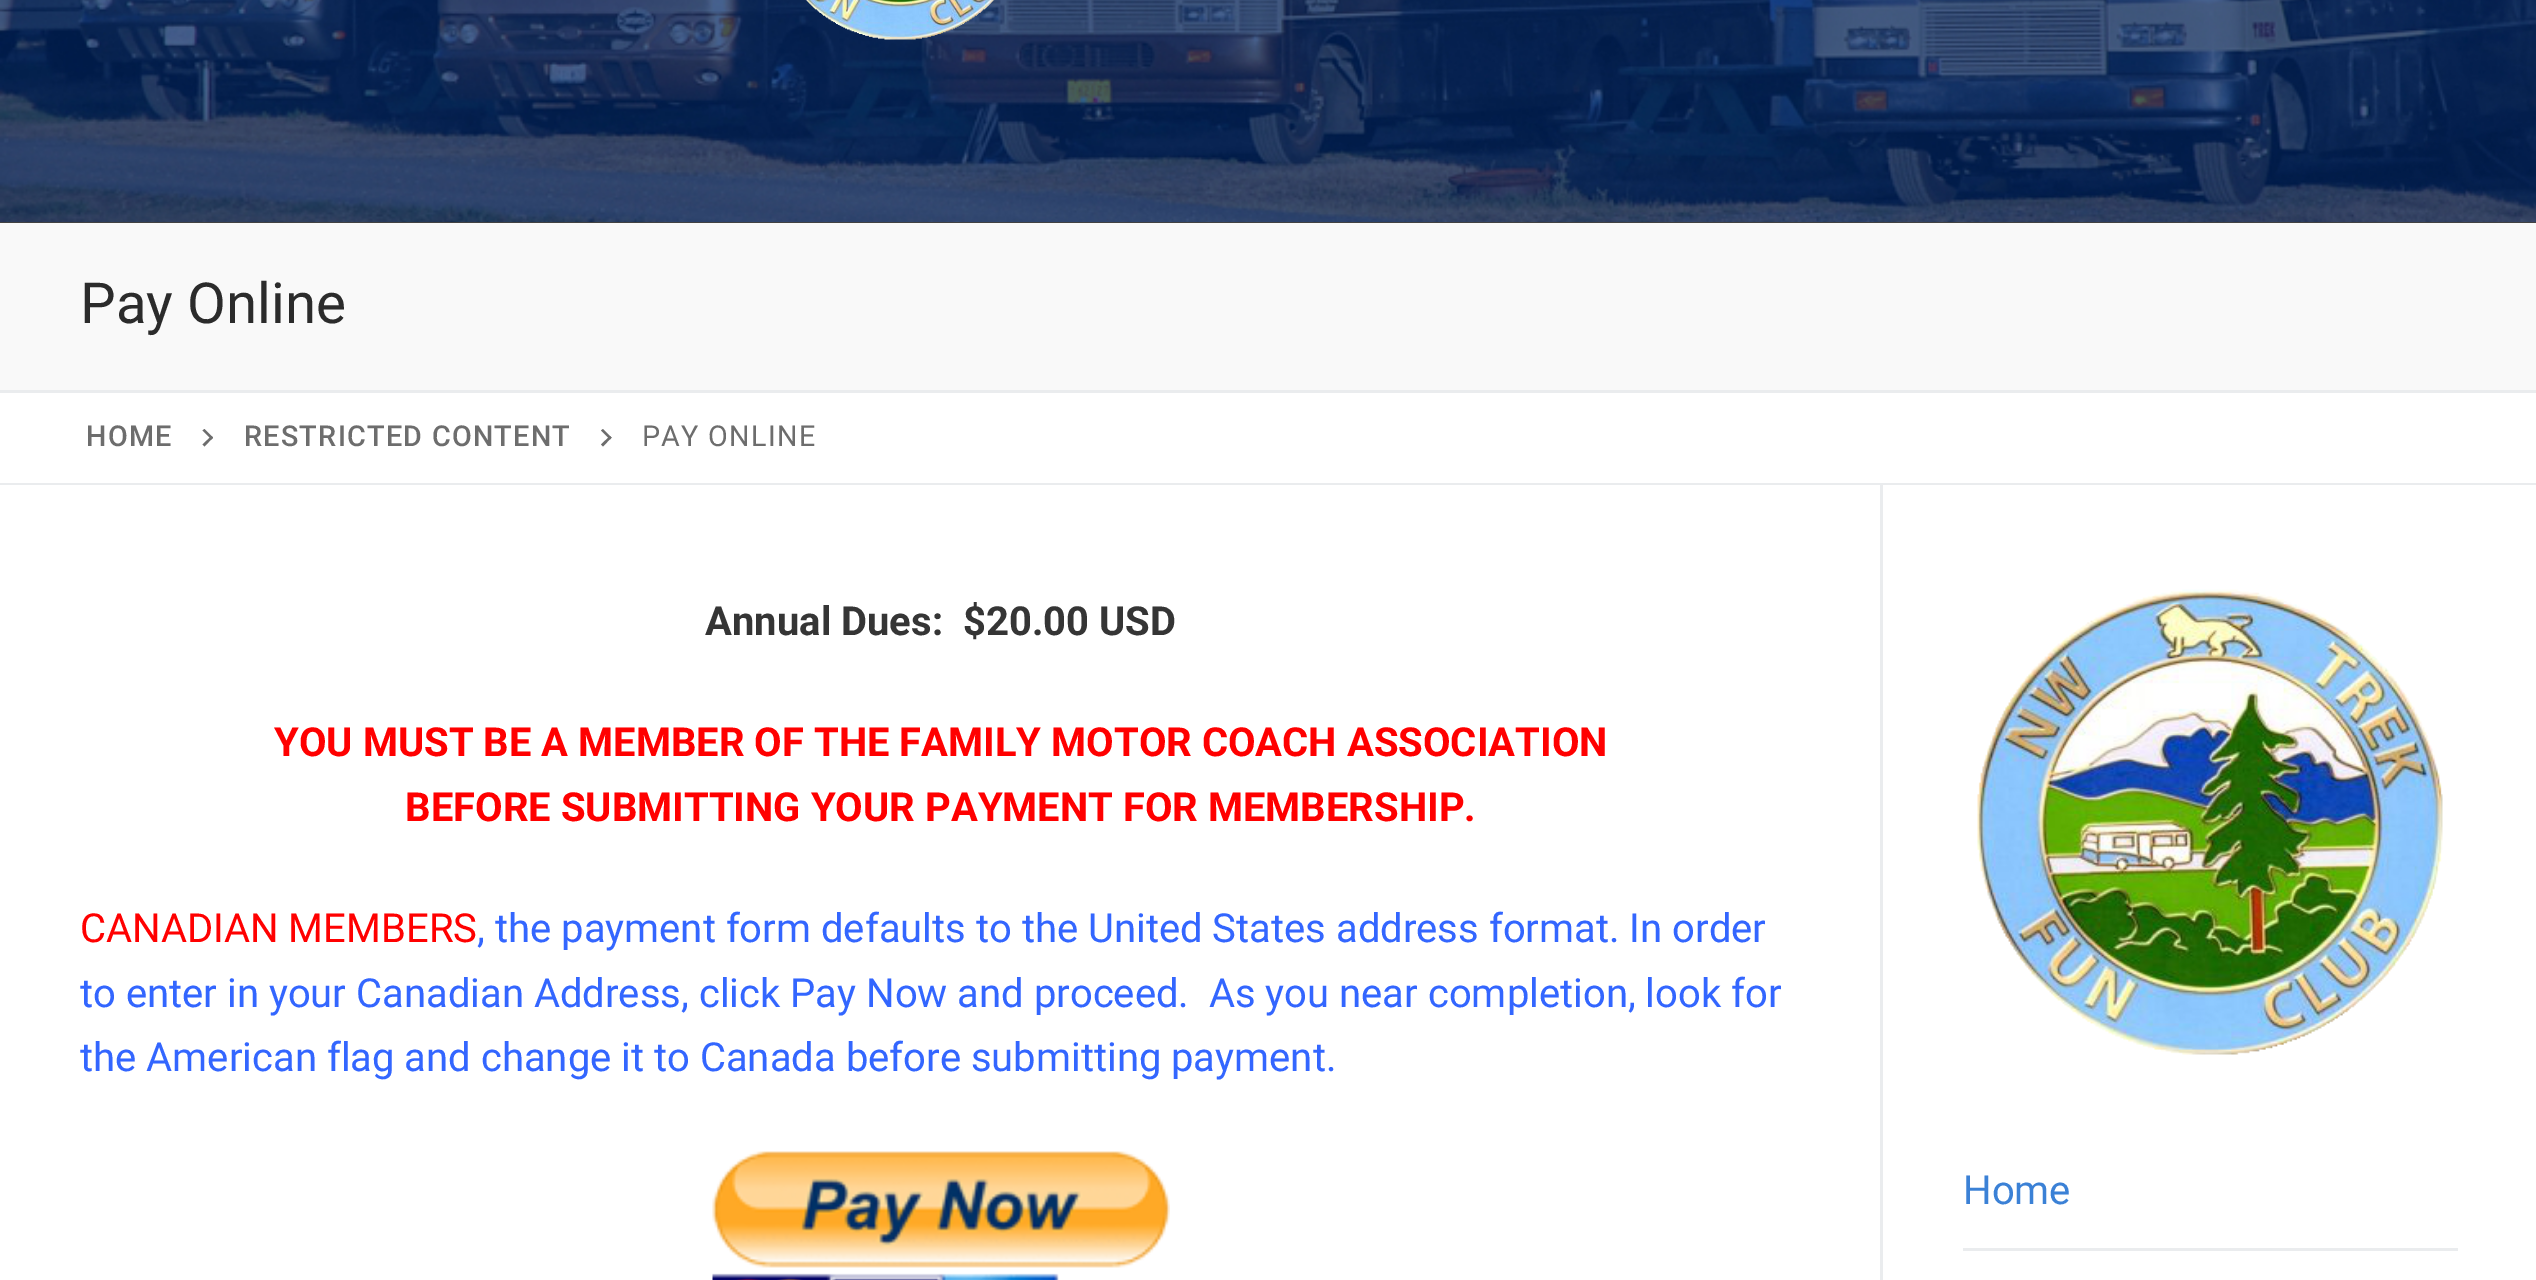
%!PS
<< /PageSize [2536 1280] >> setpagedevice
/rgb { dup -16 bitshift 255 div exch dup -8 bitshift 255 and 255 div exch 255 and 255 div setrgbcolor } def
/font { [ exch dup neg 0 0 3 -1 roll 0 0 ] selectfont } def
/text { moveto show } def
/picture { 5 dict begin { /h /w /y /x /name } { exch def } forall
  gsave x y translate w h scale
  w h 8 [w 0 0 h 0 0] name (r) file false 3 colorimage grestore end } def
0 1280 translate 1 -1 scale
4 setmiterlimit
/s1 { /Roboto-Regular 56.5 font 16#2B2B2B rgb } def
/s2 { /Roboto-Bold 40 font 16#353535 rgb } def
/s3 { /Roboto-Bold 40 font 16#FF0000 rgb } def
/s4 { /Roboto-Regular 40 font 16#FF0000 rgb } def
/s5 { /Roboto-Regular 40 font 16#3366FF rgb } def
/s6 { /Roboto-Regular 40 font 16#3B81D6 rgb } def
16#FFFFFF rgb
0 0 2536 1280 rectfill
16#424242 rgb
0 222 2536 1 rectfill
(pic1.raw) 0 0 2536 222 picture
(pic2.raw) 805 0 190 40 picture
16#F9F9F9 rgb
0 223 2536 167 rectfill
16#EAECEE rgb
0 390 2536 3 rectfill
s1
(Pay Online) 80 323 text
16#EAECEE rgb
0 483 2536 2 rectfill
/Roboto-Medium 28.75 font
16#6D6D6D rgb
86 446 moveto 1.25 0 (HOME) ashow
213 437.5 moveto 204.5 446.5 lineto 202.5 444.5 lineto 211.5 436 lineto closepath fill
213 437.5 moveto 211.5 439.5 lineto 202.5 430.5 lineto 204.5 429 lineto closepath fill
244 446 moveto 1.25 0 (RESTRICTED CONTENT) ashow
611.5 437.5 moveto 603 446.5 lineto 601 444.5 lineto 610 436 lineto closepath fill
611.5 437.5 moveto 610 439.5 lineto 601 430.5 lineto 603 429 lineto closepath fill
/Roboto-Regular 28.75 font
642 446 moveto 1.25 0 (PAY ONLINE) ashow
16#EAECEE rgb
1880 485 3 795 rectfill
s2
(Annual Dues:  $20.00 USD) 705 635 text
s3
(YOU MUST BE A MEMBER OF THE FAMILY MOTOR COACH ASSOCIATION) 274 756 text
(BEFORE SUBMITTING YOUR PAYMENT FOR MEMBERSHIP.) 405 821 text
s4
(CANADIAN MEMBERS) 80 942 text
s5
(, the payment form defaults to the United States address format. In order) 477 942 text
(to enter in your Canadian Address, click Pay Now and proceed.  As you near completion, look for) 80 1007 text
(the American flag and change it to Canada before submitting payment.) 80 1071 text
(pic3.raw) 712 1151 458 129 picture
(pic4.raw) 1977 589 466 466 picture
16#EAECEE rgb
1963 1248 495 3 rectfill
s6
(Home) 1963 1204 text
showpage
